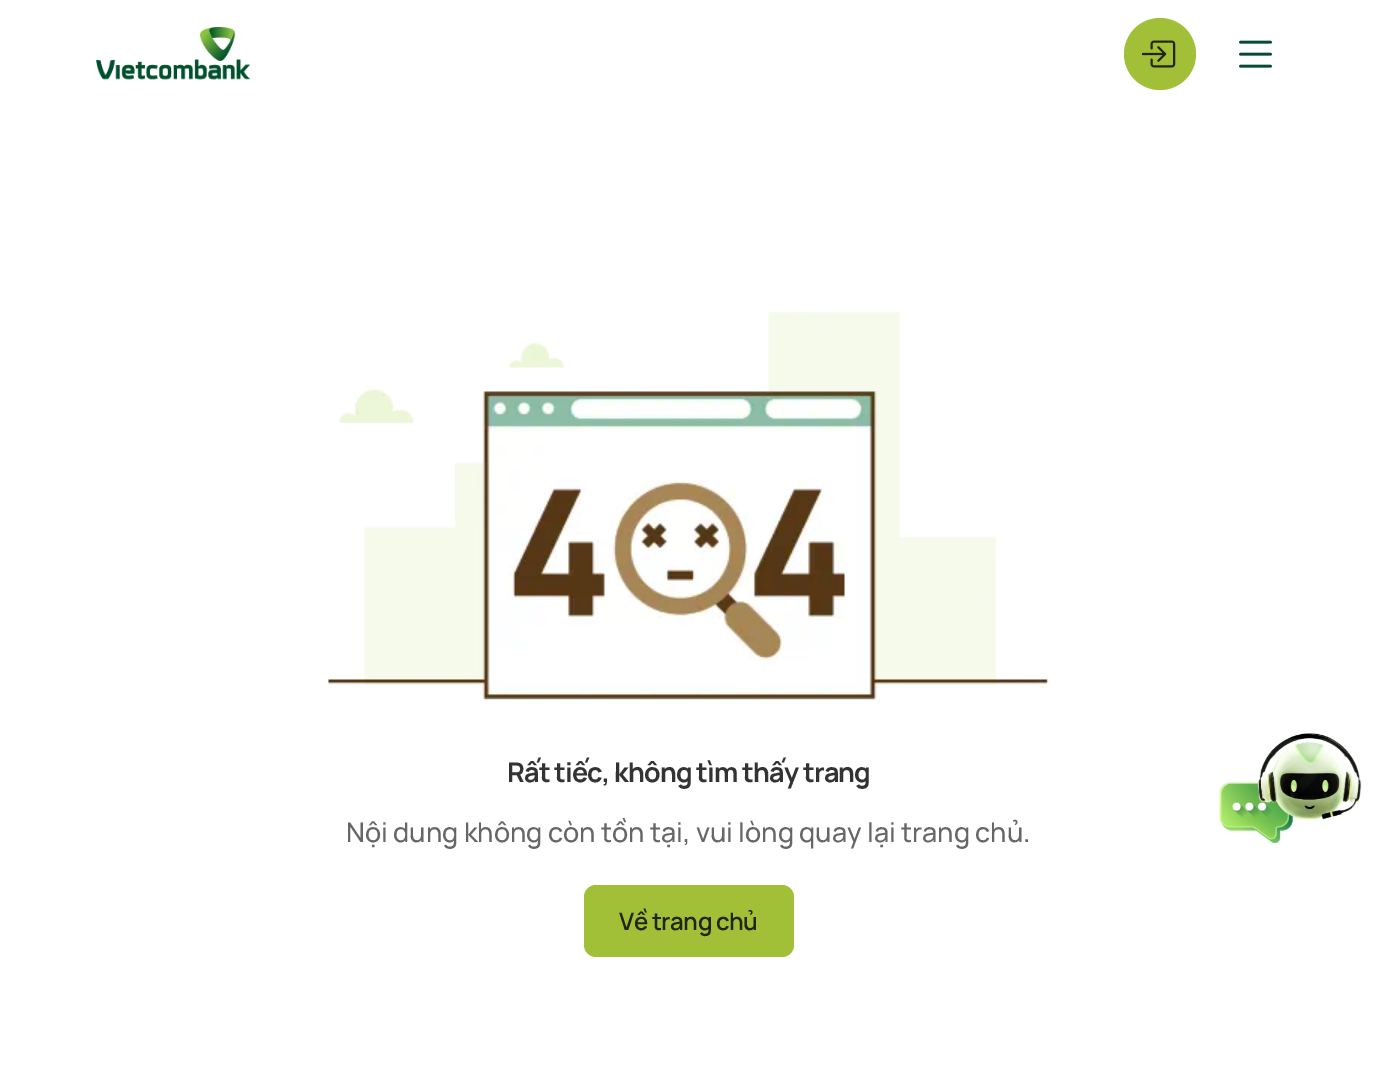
%!PS
<< /PageSize [1377 1089] >> setpagedevice
/rgb { dup -16 bitshift 255 div exch dup -8 bitshift 255 and 255 div exch 255 and 255 div setrgbcolor } def
/font { [ exch dup neg 0 0 3 -1 roll 0 0 ] selectfont } def
/text { moveto show } def
/circle { newpath 0 360 arc closepath } def
/roundrect { 5 dict begin { /r /h /w /y /x } { exch def } forall
  x r add y moveto x w add y 2 copy h add r arct x w add y h add x 1 index r arct
  x y h add x y r arct x y 2 copy exch w add exch r arct closepath end } def
/picture { 5 dict begin { /h /w /y /x /name } { exch def } forall
  gsave x y translate w h scale
  w h 8 [w 0 0 h 0 0] name (r) file false 3 colorimage grestore end } def
0 1089 translate 1 -1 scale
4 setmiterlimit
/s1 { /Manrope-Medium 27 font 16#666666 rgb } def
16#FFFFFF rgb
0 0 1377 1089 rectfill
(pic1.raw) 96 27 155 53 picture
16#A1C038 rgb
1160 54 36 circle fill
(pic2.raw) 1142 40 34 28 picture
(pic3.raw) 1239 40 33 28 picture
(pic4.raw) 328 312 721 388 picture
/Manrope-Bold 27 font
16#333333 rgb
507 782 moveto -0.8 0 (Rất tiếc, không tìm thấy trang) ashow
s1
(Nội dung không còn tồn tại, vui lòng quay lại trang chủ.) 346 842 text
16#A1C038 rgb
584 885 210 72 12 roundrect fill
/Manrope-SemiBold 24 font
16#20260B rgb
619 930 moveto -0.5 0 (Về trang chủ) ashow
(pic5.raw) 1219 733 143 110 picture
showpage
